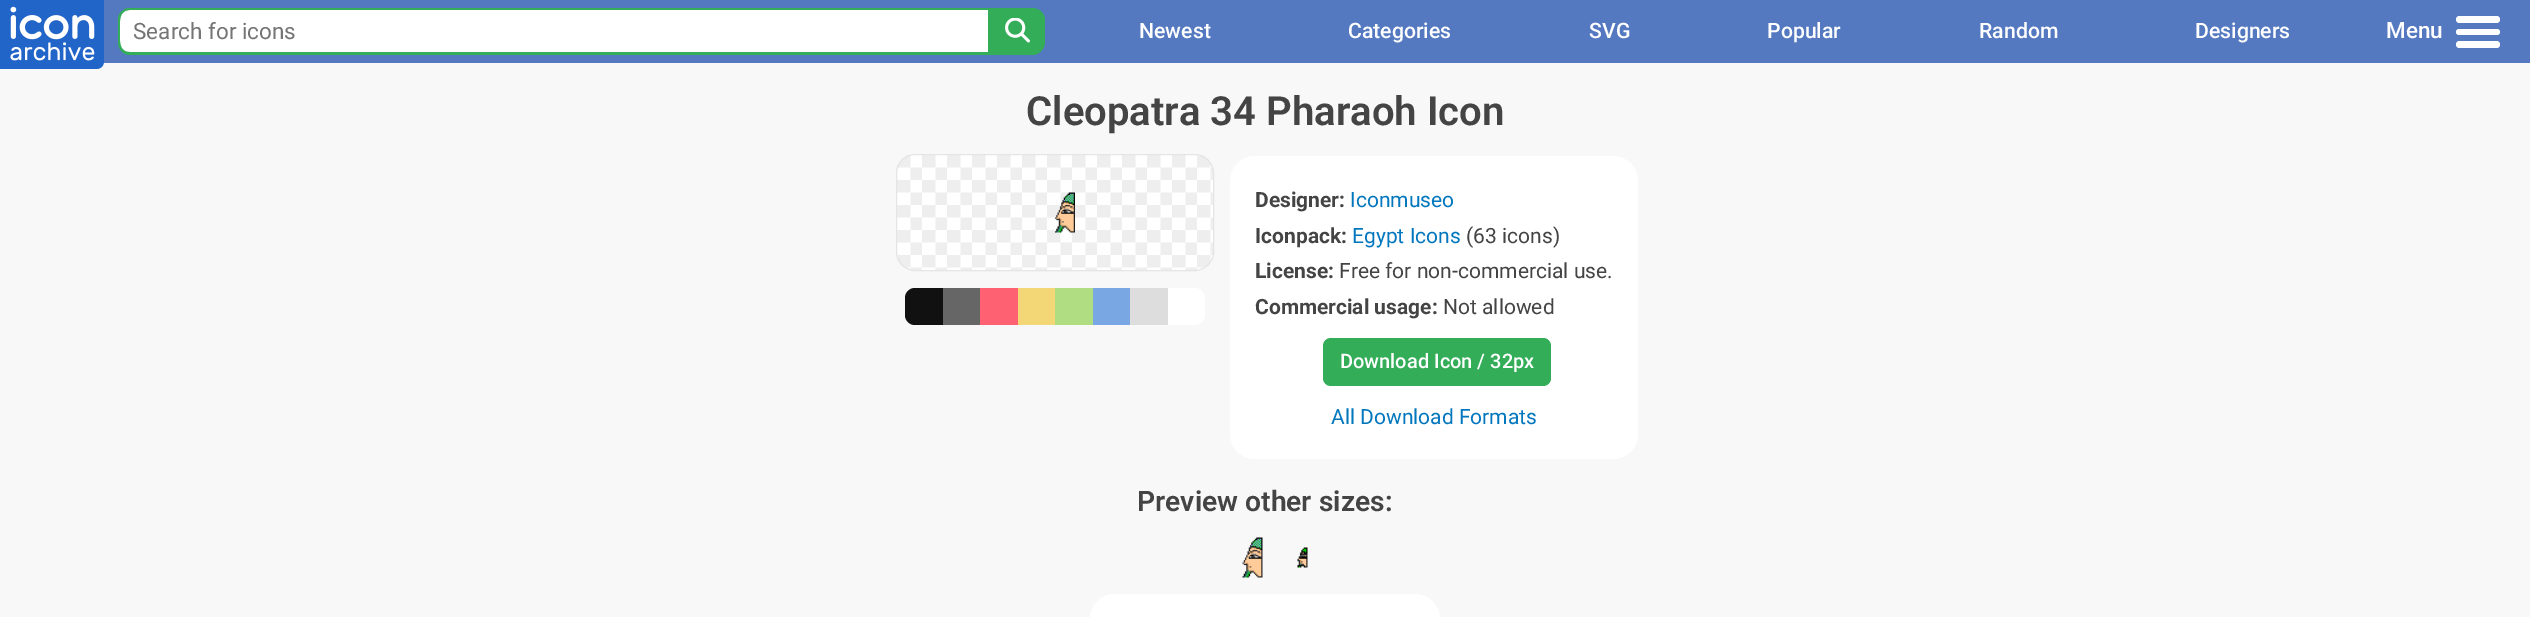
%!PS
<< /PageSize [2530 617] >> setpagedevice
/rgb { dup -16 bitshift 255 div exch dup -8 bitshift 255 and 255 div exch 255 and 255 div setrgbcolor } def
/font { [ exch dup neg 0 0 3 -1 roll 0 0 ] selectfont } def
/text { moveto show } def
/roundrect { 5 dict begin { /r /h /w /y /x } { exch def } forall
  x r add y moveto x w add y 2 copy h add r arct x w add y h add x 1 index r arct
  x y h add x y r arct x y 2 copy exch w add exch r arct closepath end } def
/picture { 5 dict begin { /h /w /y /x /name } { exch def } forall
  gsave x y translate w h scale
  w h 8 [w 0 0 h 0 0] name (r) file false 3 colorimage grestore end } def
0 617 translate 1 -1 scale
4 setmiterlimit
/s1 { /Roboto-Regular 22.5 font 16#757575 rgb } def
/s2 { /Roboto-Medium 21.25 font 16#FFFFFF rgb } def
/s3 { /Roboto-Medium 22.5 font 16#FFFFFF rgb } def
/s4 { /Roboto-SemiBold 40.1 font 16#444444 rgb } def
/s5 { /Roboto-Bold 21 font 16#444444 rgb } def
/s6 { /Roboto-Regular 21 font 16#0277BD rgb } def
/s7 { /Roboto-Regular 21 font 16#444444 rgb } def
/s8 { /Roboto-Medium 20 font 16#FFFFFF rgb } def
/s9 { /Roboto-SemiBold 28.25 font 16#444444 rgb } def
16#F8F8F8 rgb
0 0 2530 617 rectfill
16#5479C1 rgb
103 0 2427 63 rectfill
(pic1.raw) 0 0 104 69 picture
16#FFFFFF rgb
130 10 moveto 988 10 lineto 988 53 lineto 130 53 lineto 124.5 53 120 48.5 120 43 curveto 120 20 lineto 120 14.5 124.5 10 130 10 curveto closepath fill
16#34AD59 rgb
130 8 moveto 988 8 lineto 988 55 lineto 130 55 lineto 123 55 118 49 118 42 curveto 118 20 lineto 118 13 123 8 130 8 curveto closepath 130 10 moveto 988 10 lineto 988 52 lineto 130 52 lineto 118 52 120 39 120 31 curveto 120 23 118 10 130 10 curveto closepath eofill
s1
(Search for icons) 133 39 text
16#34AD59 rgb
988 10 moveto 1033 10 lineto 1038.5 10 1043 14.5 1043 20 curveto 1043 43 lineto 1043 48.5 1038.5 53 1033 53 curveto 988 53 lineto closepath fill
988 8 moveto 1032 8 lineto 1039 8 1045 13 1045 20 curveto 1045 42 lineto 1045 49 1039 55 1032 55 curveto 988 55 lineto closepath 988 10 moveto 1032 10 lineto 1038 10 1042 14 1042 20 curveto 1042 42 lineto 1042 48 1038 52 1032 52 curveto 988 52 lineto closepath eofill
(pic2.raw) 1005 18 25 25 picture
s2
(Newest) 1139 38 text
(Categories) 1348 38 text
(SVG) 1589 38 text
(Popular) 1767 38 text
(Random) 1979 38 text
(Designers) 2195 38 text
s3
(Menu) 2386 38 text
2456 16 44 7 3.5 roundrect fill
2456 29 44 6 3 roundrect fill
2456 41 44 7 3.5 roundrect fill
s4
(Cleopatra 34 Pharaoh Icon) 1026 125 text
(pic3.raw) 896 154 318 117 picture
16#E5E5E5 rgb
896.5 154.5 317 116 18.5 roundrect stroke
(pic4.raw) 1054 192 21 41 picture
16#111111 rgb
915 288 moveto 943 288 lineto 943 325 lineto 915 325 lineto 909.5 325 905 320.5 905 315 curveto 905 298 lineto 905 292.5 909.5 288 915 288 curveto closepath fill
16#666666 rgb
943 288 37 37 rectfill
16#FE6171 rgb
980 288 38 37 rectfill
16#F3D776 rgb
1018 288 37 37 rectfill
16#B0DC82 rgb
1055 288 38 37 rectfill
16#79A7E4 rgb
1093 288 37 37 rectfill
16#DDDDDD rgb
1130 288 38 37 rectfill
16#FFFFFF rgb
1168 288 moveto 1195 288 lineto 1200.5 288 1205 292.5 1205 298 curveto 1205 315 lineto 1205 320.5 1200.5 325 1195 325 curveto 1168 325 lineto closepath fill
1230 156 408 303 25 roundrect fill
s5
(Designer:) 1255 207 text
s6
(Iconmuseo) 1350 207 text
s5
(Iconpack:) 1255 243 text
s6
(Egypt Icons) 1352 243 text
s7
(\(63 icons\)) 1466 243 text
s5
(License:) 1255 278 text
s7
(Free for non-commercial use.) 1339 278 text
s5
(Commercial usage:) 1255 314 text
s7
(Not allowed) 1443 314 text
16#34AD59 rgb
1323 338 228 48 8 roundrect fill
s8
(Download Icon / 32px) 1340 368 text
s6
(All Download Formats) 1331 424 text
s9
(Preview other sizes:) 1137 511 text
(pic5.raw) 1242 537 21 41 picture
(pic6.raw) 1297 547 11 21 picture
16#FFFFFF rgb
1090 594 350 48 25 roundrect fill
showpage
